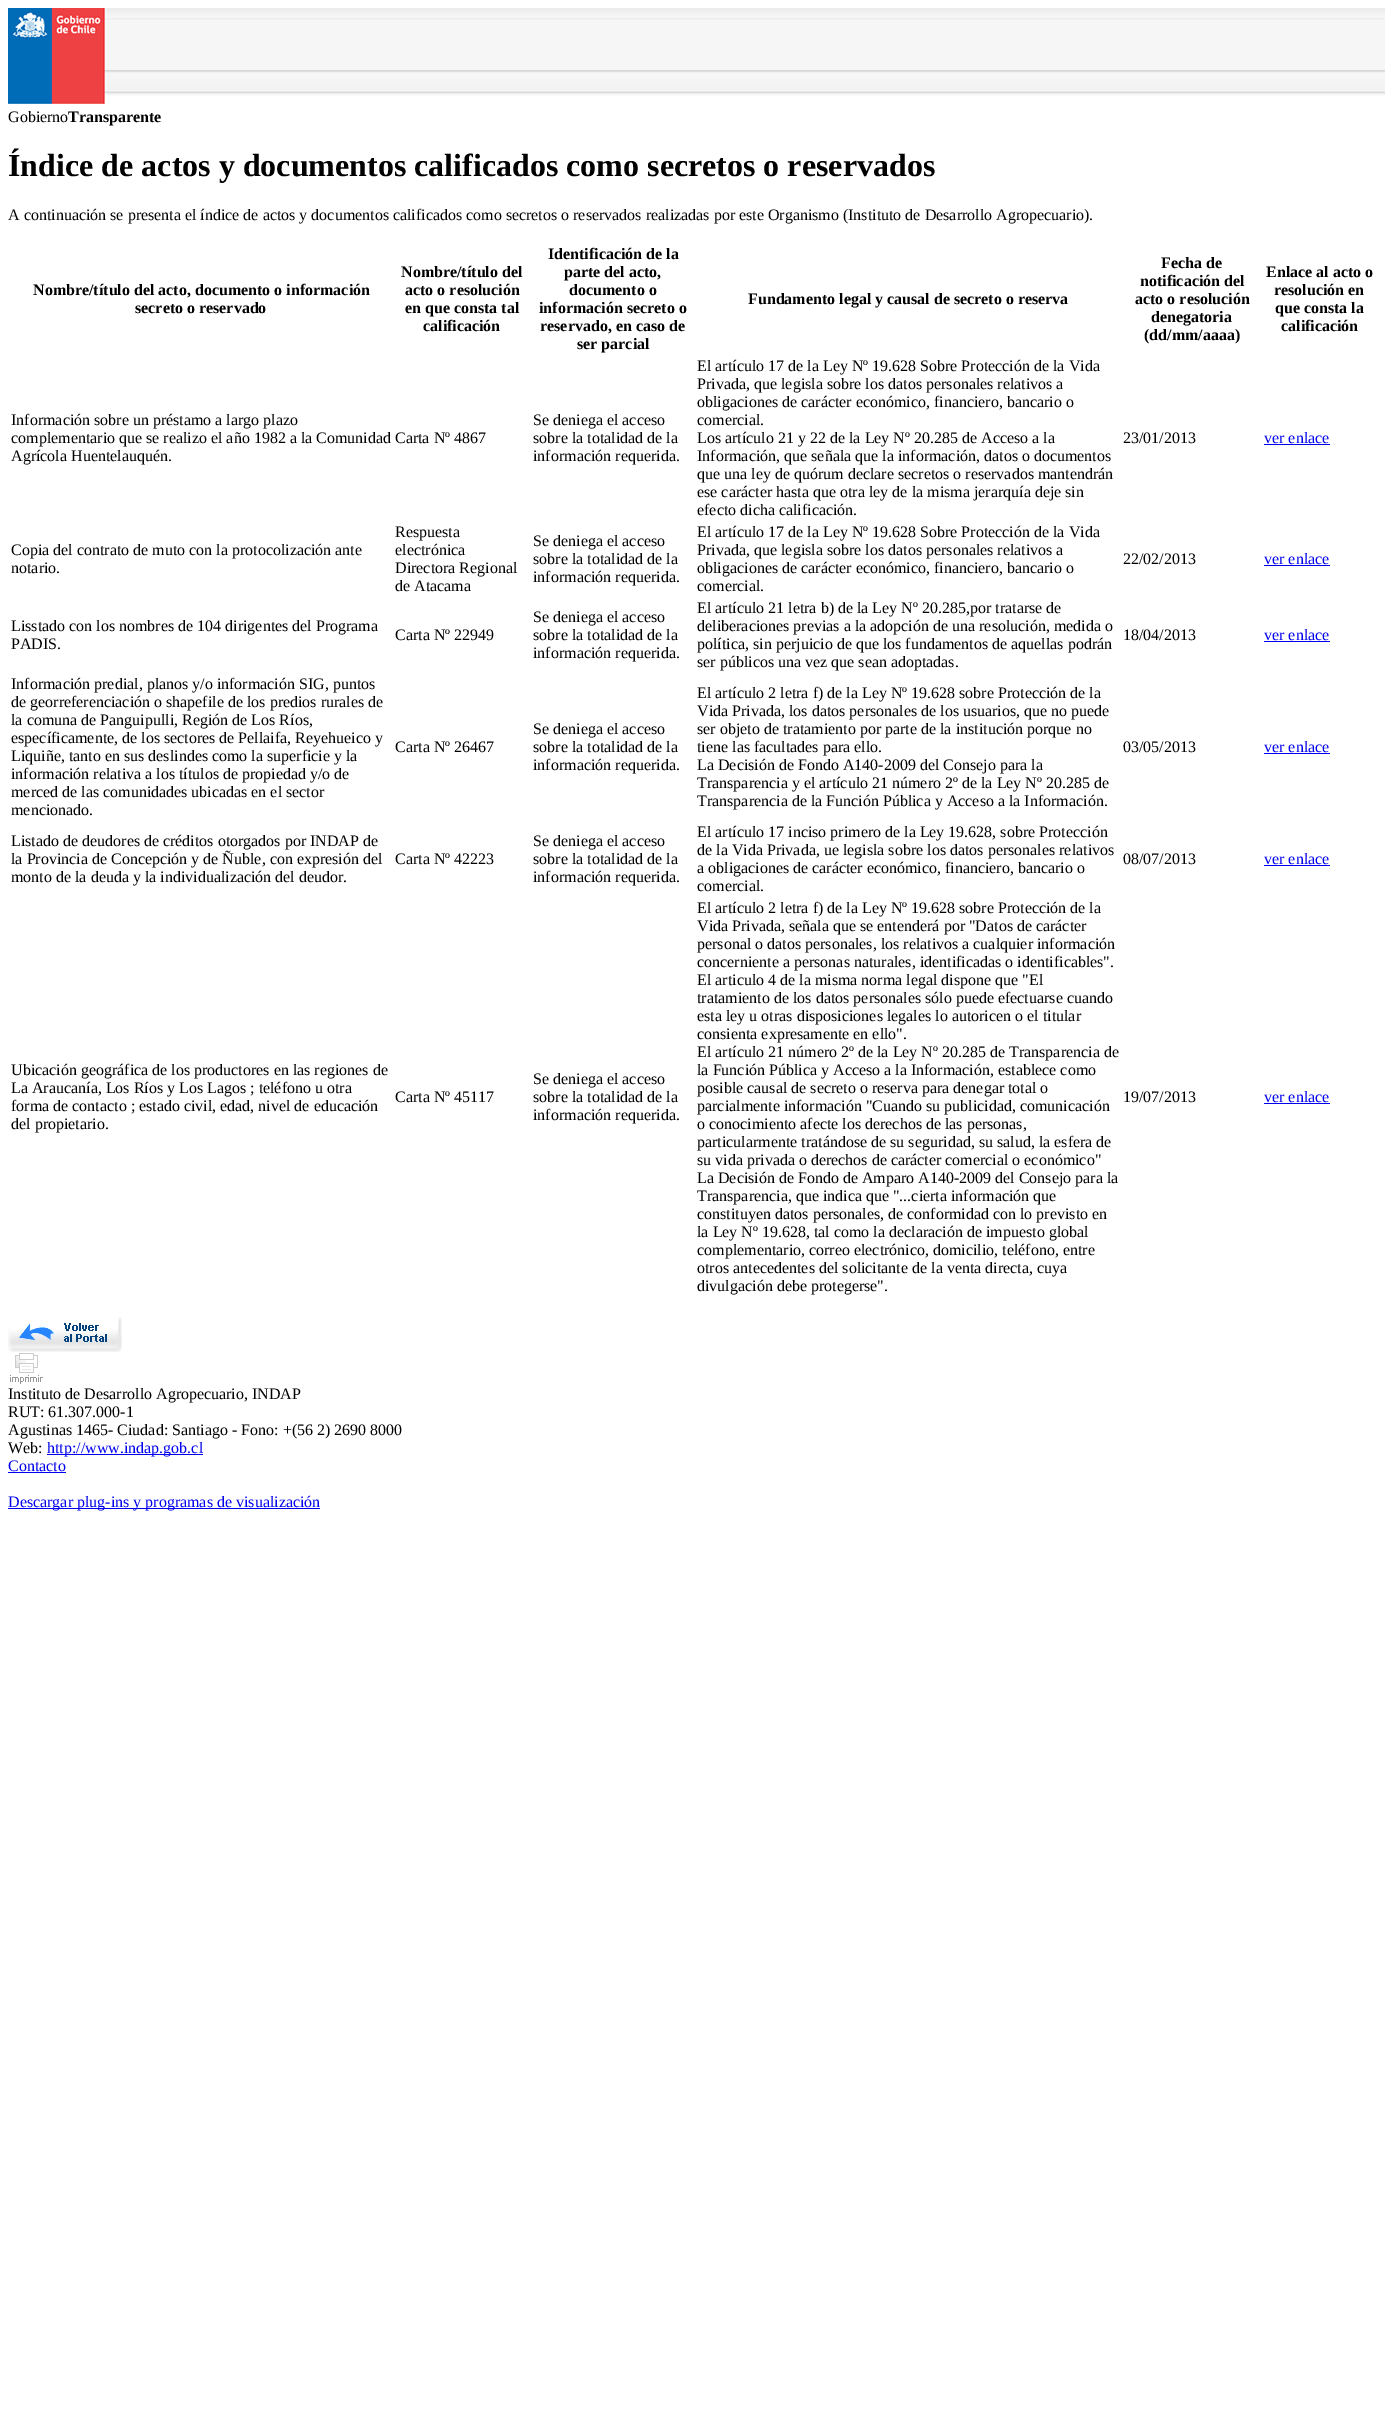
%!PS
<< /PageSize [1385 2435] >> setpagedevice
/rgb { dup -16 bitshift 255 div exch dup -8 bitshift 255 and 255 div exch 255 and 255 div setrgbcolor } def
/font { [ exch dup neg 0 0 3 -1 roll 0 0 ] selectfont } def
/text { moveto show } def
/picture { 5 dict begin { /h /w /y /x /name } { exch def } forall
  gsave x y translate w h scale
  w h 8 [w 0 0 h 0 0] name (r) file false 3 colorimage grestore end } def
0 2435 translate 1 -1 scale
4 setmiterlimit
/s1 { /LiberationSerif-Regular 16 font 16#000000 rgb } def
/s2 { /LiberationSerif-Bold 16 font 16#000000 rgb } def
/s3 { /LiberationSerif-Bold 32 font 16#000000 rgb } def
/s4 { /LiberationSerif-Regular 16 font 16#0000EE rgb } def
16#FFFFFF rgb
0 0 1385 2435 rectfill
(pic1.raw) 8 8 1377 96 picture
s1
(Gobierno) 8 122 text
s2
(Transparente) 68 122 text
s3
(Índice de actos y documentos calificados como secretos o reservados) 8 176 text
s1
(A continuación se presenta el índice de actos y documentos calificados como secretos o reservados realizadas por este Organismo \(Instituto de Desarrollo Agropecuario\).) 8 220 text
s2
(Nombre/título del acto, documento o información) 33 295 text
(secreto o reservado) 135 313 text
(Nombre/título del) 401 277 text
(acto o resolución) 405 295 text
(en que consta tal) 405 313 text
(calificación) 423 331 text
(Identificación de la) 548 259 text
(parte del acto,) 564 277 text
(documento o) 569 295 text
(información secreto o) 539 313 text
(reservado, en caso de) 540 331 text
(ser parcial) 577 349 text
(Fundamento legal y causal de secreto o reserva) 748 304 text
(Fecha de) 1161 268 text
(notificación del) 1140 286 text
(acto o resolución) 1135 304 text
(denegatoria) 1151 322 text
(\(dd/mm/aaaa\)) 1144 340 text
(Enlace al acto o) 1266 277 text
(resolución en) 1274 295 text
(que consta la) 1275 313 text
(calificación) 1281 331 text
s1
(Información sobre un préstamo a largo plazo) 11 425 text
(complementario que se realizo el año 1982 a la Comunidad Carta Nº 4867) 11 443 text
(Agrícola Huentelauquén.) 11 461 text
(Se deniega el acceso) 533 425 text
(sobre la totalidad de la) 533 443 text
(información requerida.) 533 461 text
(El artículo 17 de la Ley Nº 19.628 Sobre Protección de la Vida) 697 371 text
(Privada, que legisla sobre los datos personales relativos a) 697 389 text
(obligaciones de carácter económico, financiero, bancario o) 697 407 text
(comercial.) 697 425 text
(Los artículo 21 y 22 de la Ley Nº 20.285 de Acceso a la) 697 443 text
(Información, que señala que la información, datos o documentos) 697 461 text
(que una ley de quórum declare secretos o reservados mantendrán) 697 479 text
(ese carácter hasta que otra ley de la misma jerarquía deje sin) 697 497 text
(efecto dicha calificación.) 697 515 text
(23/01/2013) 1123 443 text
s4
(ver enlace) 1264 443 text
1264 444 66 1 rectfill
s1
(Copia del contrato de muto con la protocolización ante) 11 555 text
(notario.) 11 573 text
(Respuesta) 395 537 text
(electrónica) 395 555 text
(Directora Regional) 395 573 text
(de Atacama) 395 591 text
(Se deniega el acceso) 533 546 text
(sobre la totalidad de la) 533 564 text
(información requerida.) 533 582 text
(El artículo 17 de la Ley Nº 19.628 Sobre Protección de la Vida) 697 537 text
(Privada, que legisla sobre los datos personales relativos a) 697 555 text
(obligaciones de carácter económico, financiero, bancario o) 697 573 text
(comercial.) 697 591 text
(22/02/2013) 1123 564 text
s4
(ver enlace) 1264 564 text
1264 565 66 1 rectfill
s1
(Lisstado con los nombres de 104 dirigentes del Programa) 11 631 text
(PADIS.) 11 649 text
(Carta Nº 22949) 395 640 text
(Se deniega el acceso) 533 622 text
(sobre la totalidad de la) 533 640 text
(información requerida.) 533 658 text
(El artículo 21 letra b\) de la Ley Nº 20.285,por tratarse de) 697 613 text
(deliberaciones previas a la adopción de una resolución, medida o) 697 631 text
(política, sin perjuicio de que los fundamentos de aquellas podrán) 697 649 text
(ser públicos una vez que sean adoptadas.) 697 667 text
(18/04/2013) 1123 640 text
s4
(ver enlace) 1264 640 text
1264 641 66 1 rectfill
s1
(Información predial, planos y/o información SIG, puntos) 11 689 text
(de georreferenciación o shapefile de los predios rurales de) 11 707 text
(la comuna de Panguipulli, Región de Los Ríos,) 11 725 text
(específicamente, de los sectores de Pellaifa, Reyehueico y) 11 743 text
(Liquiñe, tanto en sus deslindes como la superficie y la) 11 761 text
(información relativa a los títulos de propiedad y/o de) 11 779 text
(merced de las comunidades ubicadas en el sector) 11 797 text
(mencionado.) 11 815 text
(Carta Nº 26467) 395 752 text
(Se deniega el acceso) 533 734 text
(sobre la totalidad de la) 533 752 text
(información requerida.) 533 770 text
(El artículo 2 letra f\) de la Ley Nº 19.628 sobre Protección de la) 697 698 text
(Vida Privada, los datos personales de los usuarios, que no puede) 697 716 text
(ser objeto de tratamiento por parte de la institución porque no) 697 734 text
(tiene las facultades para ello.) 697 752 text
(La Decisión de Fondo A140-2009 del Consejo para la) 697 770 text
(Transparencia y el artículo 21 número 2º de la Ley Nº 20.285 de) 697 788 text
(Transparencia de la Función Pública y Acceso a la Información.) 697 806 text
(03/05/2013) 1123 752 text
s4
(ver enlace) 1264 752 text
1264 753 66 1 rectfill
s1
(Listado de deudores de créditos otorgados por INDAP de) 11 846 text
(la Provincia de Concepción y de Ñuble, con expresión del) 11 864 text
(monto de la deuda y la individualización del deudor.) 11 882 text
(Carta Nº 42223) 395 864 text
(Se deniega el acceso) 533 846 text
(sobre la totalidad de la) 533 864 text
(información requerida.) 533 882 text
(El artículo 17 inciso primero de la Ley 19.628, sobre Protección) 697 837 text
(de la Vida Privada, ue legisla sobre los datos personales relativos) 697 855 text
(a obligaciones de carácter económico, financiero, bancario o) 697 873 text
(comercial.) 697 891 text
(08/07/2013) 1123 864 text
s4
(ver enlace) 1264 864 text
1264 865 66 1 rectfill
s1
(Ubicación geográfica de los productores en las regiones de) 11 1075 text
(La Araucanía, Los Ríos y Los Lagos ; teléfono u otra) 11 1093 text
(forma de contacto ; estado civil, edad, nivel de educación) 11 1111 text
(del propietario.) 11 1129 text
(Carta Nº 45117) 395 1102 text
(Se deniega el acceso) 533 1084 text
(sobre la totalidad de la) 533 1102 text
(información requerida.) 533 1120 text
(El artículo 2 letra f\) de la Ley Nº 19.628 sobre Protección de la) 697 913 text
(Vida Privada, señala que se entenderá por "Datos de carácter) 697 931 text
(personal o datos personales, los relativos a cualquier información) 697 949 text
(concerniente a personas naturales, identificadas o identificables".) 697 967 text
(El articulo 4 de la misma norma legal dispone que "El) 697 985 text
(tratamiento de los datos personales sólo puede efectuarse cuando) 697 1003 text
(esta ley u otras disposiciones legales lo autoricen o el titular) 697 1021 text
(consienta expresamente en ello".) 697 1039 text
(El artículo 21 número 2º de la Ley Nº 20.285 de Transparencia de) 697 1057 text
(la Función Pública y Acceso a la Información, establece como) 697 1075 text
(posible causal de secreto o reserva para denegar total o) 697 1093 text
(parcialmente información "Cuando su publicidad, comunicación) 697 1111 text
(o conocimiento afecte los derechos de las personas,) 697 1129 text
(particularmente tratándose de su seguridad, su salud, la esfera de) 697 1147 text
(su vida privada o derechos de carácter comercial o económico") 697 1165 text
(La Decisión de Fondo de Amparo A140-2009 del Consejo para la) 697 1183 text
(Transparencia, que indica que "...cierta información que) 697 1201 text
(constituyen datos personales, de conformidad con lo previsto en) 697 1219 text
(la Ley Nº 19.628, tal como la declaración de impuesto global) 697 1237 text
(complementario, correo electrónico, domicilio, teléfono, entre) 697 1255 text
(otros antecedentes del solicitante de la venta directa, cuya) 697 1273 text
(divulgación debe protegerse".) 697 1291 text
(19/07/2013) 1123 1102 text
s4
(ver enlace) 1264 1102 text
1264 1103 66 1 rectfill
(pic2.raw) 8 1317 114 35 picture
(pic3.raw) 10 1353 33 31 picture
s1
(Instituto de Desarrollo Agropecuario, INDAP) 8 1399 text
(RUT: 61.307.000-1) 8 1417 text
(Agustinas 1465- Ciudad: Santiago - Fono: +\(56 2\) 2690 8000) 8 1435 text
(Web:) 8 1453 text
16#0000EE rgb
47 1454 156 1 rectfill
(http://www.indap.gob.cl) 47 1453 text
(Contacto) 8 1471 text
8 1472 58 1 rectfill
8 1508 312 1 rectfill
(Descargar plug-ins y programas de visualización) 8 1507 text
showpage
